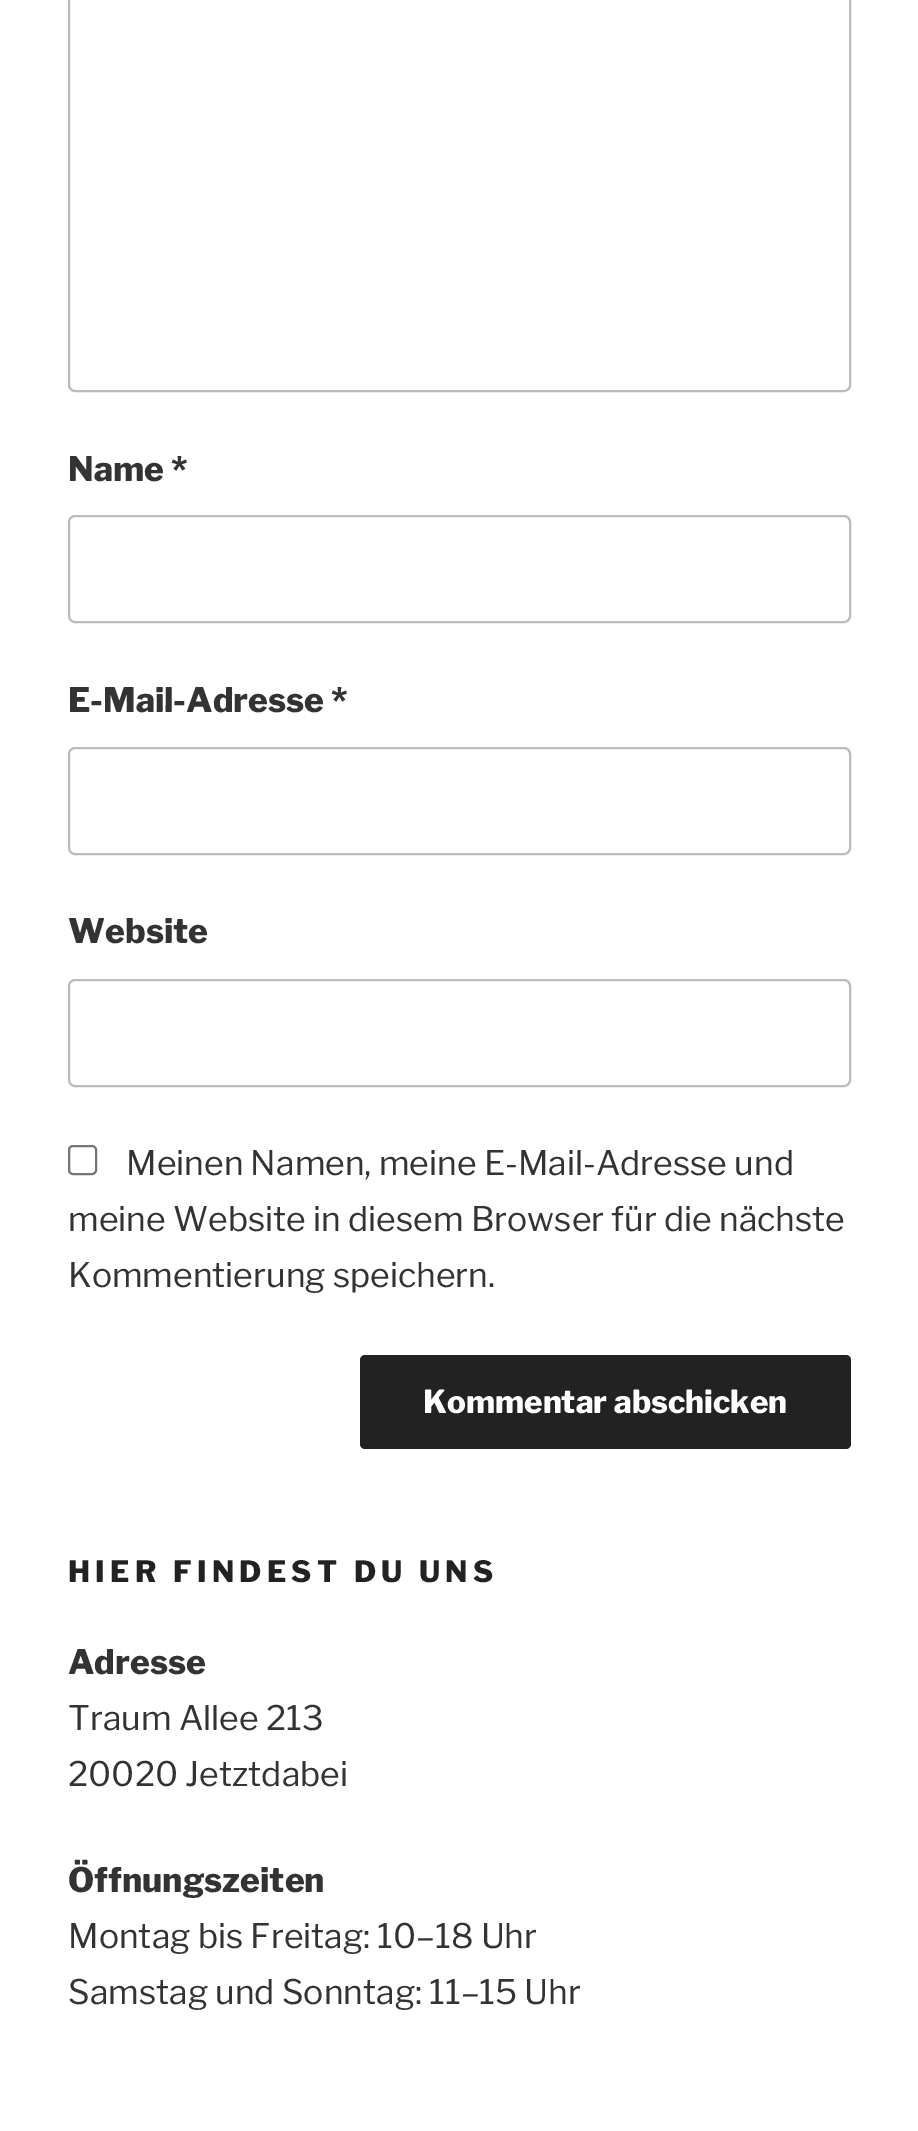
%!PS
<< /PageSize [918 2131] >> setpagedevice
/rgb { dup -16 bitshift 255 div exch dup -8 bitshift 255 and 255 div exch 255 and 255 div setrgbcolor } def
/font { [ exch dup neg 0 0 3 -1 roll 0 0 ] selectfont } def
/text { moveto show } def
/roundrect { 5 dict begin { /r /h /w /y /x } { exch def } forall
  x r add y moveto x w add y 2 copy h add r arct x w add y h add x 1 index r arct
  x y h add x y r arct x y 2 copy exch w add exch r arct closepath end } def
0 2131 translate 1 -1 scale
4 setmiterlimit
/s1 { /LibreFranklin-ExtraBold 33.75 font 16#333333 rgb } def
/s2 { /LibreFranklin-Regular 33.75 font 16#333333 rgb } def
/s3 { /LibreFranklin-ExtraBold 31.5 font 16#FFFFFF rgb } def
16#FFFFFF rgb
0 0 918 2131 rectfill
16#BBBBBB rgb
2 setlinewidth
69 -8 781 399 6 roundrect stroke
s1
(Name *) 68 481 text
16#BBBBBB rgb
69 516 781 106 6 roundrect stroke
s1
(E-Mail-Adresse *) 68 712 text
16#BBBBBB rgb
69 748 781 106 6 roundrect stroke
s1
(Website) 68 943 text
16#BBBBBB rgb
69 980 781 106 6 roundrect stroke
16#767676 rgb
69 1146 27 28 4 roundrect stroke
s2
(Meinen Namen, meine E-Mail-Adresse und) 126 1175 text
(meine Website in diesem Browser für die nächste) 68 1231 text
(Kommentierung speichern.) 68 1287 text
16#222222 rgb
360 1355 491 94 5 roundrect fill
s3
(Kommentar abschicken) 423 1413 text
/LibreFranklin-ExtraBold 29.25 font
16#222222 rgb
68 1582 moveto 5.3 0 (HIER FINDEST DU UNS) ashow
s1
(Adresse) 68 1674 text
s2
(Traum Allee 213) 68 1730 text
(20020 Jetztdabei) 68 1786 text
s1
(Öffnungszeiten) 68 1892 text
s2
(Montag bis Freitag: 10–18 Uhr) 68 1948 text
(Samstag und Sonntag: 11–15 Uhr) 68 2004 text
showpage
